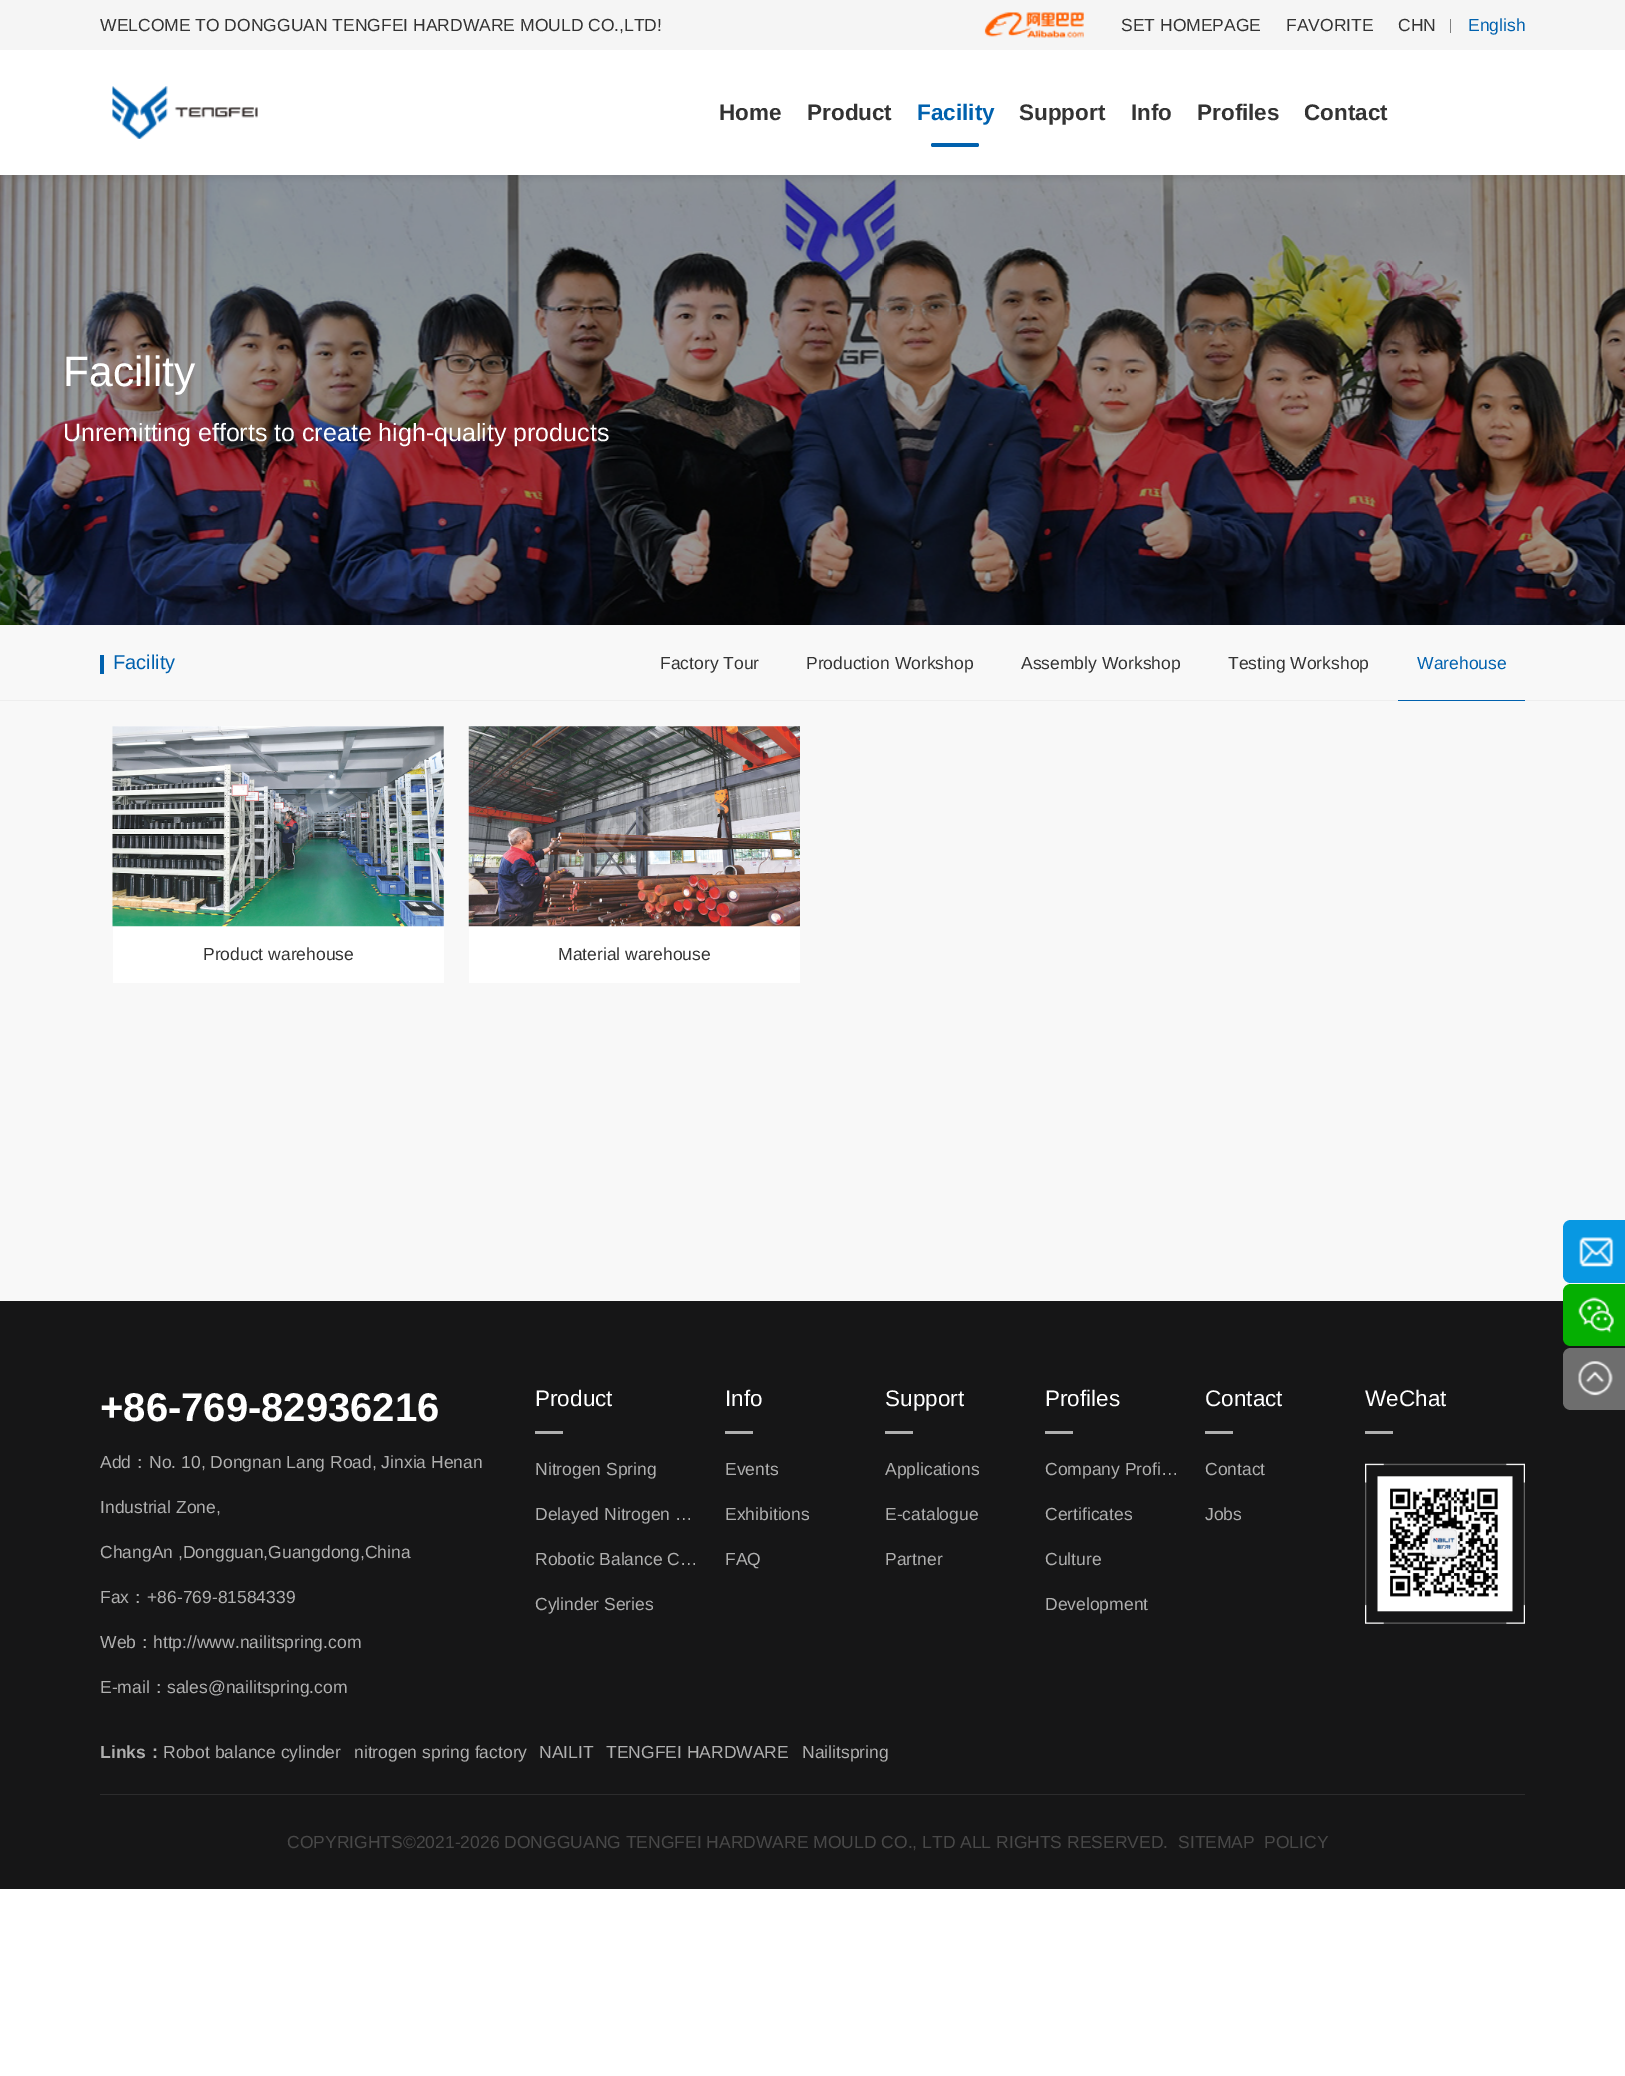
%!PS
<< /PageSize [1625 2076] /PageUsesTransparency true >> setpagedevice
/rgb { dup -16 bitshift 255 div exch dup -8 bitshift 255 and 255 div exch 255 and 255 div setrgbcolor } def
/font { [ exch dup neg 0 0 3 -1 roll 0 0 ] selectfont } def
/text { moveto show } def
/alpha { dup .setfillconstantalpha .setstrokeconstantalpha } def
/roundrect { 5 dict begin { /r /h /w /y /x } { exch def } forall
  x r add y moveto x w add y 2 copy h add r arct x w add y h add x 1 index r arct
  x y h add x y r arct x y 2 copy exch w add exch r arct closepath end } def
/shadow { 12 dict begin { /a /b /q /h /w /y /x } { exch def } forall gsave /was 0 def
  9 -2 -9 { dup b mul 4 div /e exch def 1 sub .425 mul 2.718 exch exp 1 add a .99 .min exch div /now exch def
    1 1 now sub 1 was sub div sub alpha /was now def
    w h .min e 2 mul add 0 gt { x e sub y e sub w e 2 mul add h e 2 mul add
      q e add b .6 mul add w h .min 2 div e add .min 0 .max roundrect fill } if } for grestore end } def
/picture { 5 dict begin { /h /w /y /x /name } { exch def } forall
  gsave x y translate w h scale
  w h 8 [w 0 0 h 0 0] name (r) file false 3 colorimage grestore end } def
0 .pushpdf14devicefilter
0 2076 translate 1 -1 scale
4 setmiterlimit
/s1 { /LiberationSans-Regular 17.5 font 16#333333 rgb } def
/s2 { /LiberationSans-Regular 17.5 font 16#0061AE rgb } def
/s3 { /LiberationSans-Bold 22.5 font 16#333333 rgb } def
/s4 { /LiberationSans-Bold 22.5 font 16#0061AE rgb } def
/s5 { /LiberationSans-Regular 42.5 font 16#FFFFFF rgb } def
/s6 { /LiberationSans-Regular 25 font 16#FFFFFF rgb } def
/s7 { /LiberationSans-Regular 20 font 16#0061AE rgb } def
/s8 { /LiberationSans-Bold 40 font 16#FFFFFF rgb } def
/s9 { /LiberationSans-Regular 17.5 font 16#AFAFAF rgb } def
/s10 { /WenQuanYiZenHei-Medium 17.5 font 16#AFAFAF rgb } def
/s11 { /LiberationSans-Regular 22.5 font 16#FFFFFF rgb } def
/s12 { /LiberationSans-Bold 17.5 font 16#AFAFAF rgb } def
/s13 { /WenQuanYiZenHei-Bold 17.5 font 16#AFAFAF rgb } def
/s14 { /LiberationSans-Regular 17.5 font 16#484848 rgb } def
16#FFFFFF rgb
0 0 1625 2076 rectfill
16#F8F8F8 rgb
0 625 1625 676 rectfill
16#000000 rgb
0 175 1625 450 rectfill
(pic3.raw) 0 175 1625 450 picture
0 4 1625 175 0 2 0.06 shadow
16#FFFFFF rgb
0 50 1625 125 rectfill
16#F5F5F5 rgb
0 0 1625 50 rectfill
s1
(WELCOME TO DONGGUAN TENGFEI HARDWARE MOULD CO.,LTD!) 100 31 text
(pic1.raw) 984 12 100 26 picture
(SET HOMEPAGE) 1121 31 text
(FAVORITE) 1286 31 text
(CHN) 1398 31 text
16#818181 rgb
1450 19 1 14 rectfill
s2
(English) 1468 31 text
(pic2.raw) 112 86 146 53 picture
s3
(Home) 719 120 text
(Product) 807 120 text
s4
(Facility) 917 120 text
931 143 48 4 2 roundrect fill
s3
(Support) 1019 120 text
(Info) 1131 120 text
(Profiles) 1197 120 text
(Contact) 1304 120 text
s5
(Facility) 63 386 text
s6
(Unremitting efforts to create high-quality products) 63 441 text
16#EEEEEE rgb
0 700 1625 1 rectfill
16#0061AE rgb
100 655 4 19 rectfill
s7
(Facility) 113 669 text
s1
(Factory Tour) 660 669 text
(Production Workshop) 806 669 text
(Assembly Workshop) 1021 669 text
(Testing Workshop) 1228 669 text
16#0061AE rgb
1398 700 127 1 rectfill
(Warehouse) 1417 669 text
16#FFFFFF rgb
113 726 331 257 rectfill
(pic4.raw) 112 726 332 201 picture
s1
(Product warehouse) 203 960 text
16#FFFFFF rgb
469 726 331 257 rectfill
(pic5.raw) 468 726 332 201 picture
s1
(Material warehouse) 558 960 text
16#0898E2 rgb
1571 1220 moveto 1625 1220 lineto 1625 1283 lineto 1571 1283 lineto 1566.5 1283 1563 1279.5 1563 1275 curveto 1563 1228 lineto 1563 1223.5 1566.5 1220 1571 1220 curveto closepath fill
(pic6.raw) 1579 1237 35 30 picture
16#161617 rgb
0 1301 1625 588 rectfill
16#05AF02 rgb
1571 1284 moveto 1625 1284 lineto 1625 1346 lineto 1571 1346 lineto 1566.5 1346 1563 1342.5 1563 1338 curveto 1563 1292 lineto 1563 1287.5 1566.5 1284 1571 1284 curveto closepath fill
(pic7.raw) 1578 1297 36 36 picture
16#6E6E6E rgb
1571 1348 moveto 1625 1348 lineto 1625 1410 lineto 1571 1410 lineto 1566.5 1410 1563 1406.5 1563 1402 curveto 1563 1356 lineto 1563 1351.5 1566.5 1348 1571 1348 curveto closepath fill
(pic8.raw) 1578 1361 35 35 picture
s8
(+86-769-82936216) 100 1421 text
s9
(Add) 100 1468 text
s10
(：) 131 1468 text
s9
(No. 10, Dongnan Lang Road, Jinxia Henan) 149 1468 text
(Industrial Zone,) 100 1513 text
(ChangAn ,Dongguan,Guangdong,China) 100 1558 text
(Fax) 100 1603 text
s10
(：) 129 1603 text
s9
(+86-769-81584339) 147 1603 text
(Web) 100 1648 text
s10
(：) 136 1648 text
s9
(http://www.nailitspring.com) 153 1648 text
(E-mail) 100 1693 text
s10
(：) 150 1693 text
s9
(sales@nailitspring.com) 167 1693 text
s11
(Product) 535 1406 text
16#AFAFAF rgb
535 1431 28 3 rectfill
s9
(Nitrogen Spring) 535 1475 text
(Delayed Nitrogen …) 535 1520 text
(Robotic Balance C…) 535 1565 text
(Cylinder Series) 535 1610 text
s11
(Info) 725 1406 text
16#AFAFAF rgb
725 1431 28 3 rectfill
s9
(Events) 725 1475 text
(Exhibitions) 725 1520 text
(FAQ) 725 1565 text
s11
(Support) 885 1406 text
16#AFAFAF rgb
885 1431 28 3 rectfill
s9
(Applications) 885 1475 text
(E-catalogue) 885 1520 text
(Partner) 885 1565 text
s11
(Profiles) 1045 1406 text
16#AFAFAF rgb
1045 1431 28 3 rectfill
s9
(Company Profi…) 1045 1475 text
(Certificates) 1045 1520 text
(Culture) 1045 1565 text
(Development) 1045 1610 text
s11
(Contact) 1205 1406 text
16#AFAFAF rgb
1205 1431 28 3 rectfill
s9
(Contact) 1205 1475 text
(Jobs) 1205 1520 text
(pic9.raw) 1365 1463 160 161 picture
s11
(WeChat) 1365 1406 text
16#AFAFAF rgb
1365 1431 28 3 rectfill
(pic10.raw) 1390 1488 108 109 picture
s12
(Links) 100 1758 text
s13
(：) 146 1758 text
s9
(Robot balance cylinder) 163 1758 text
(nitrogen spring factory) 354 1758 text
(NAILIT) 539 1758 text
(TENGFEI HARDWARE) 606 1758 text
(Nailitspring) 802 1758 text
16#2C2C2D rgb
100 1794 1425 1 rectfill
s14
(COPYRIGHTS©2021-2026 DONGGUANG TENGFEI HARDWARE MOULD CO., LTD ALL RIGHTS RESERVED.) 287 1848 text
(SITEMAP) 1178 1848 text
(POLICY) 1264 1848 text
.poppdf14devicefilter showpage
